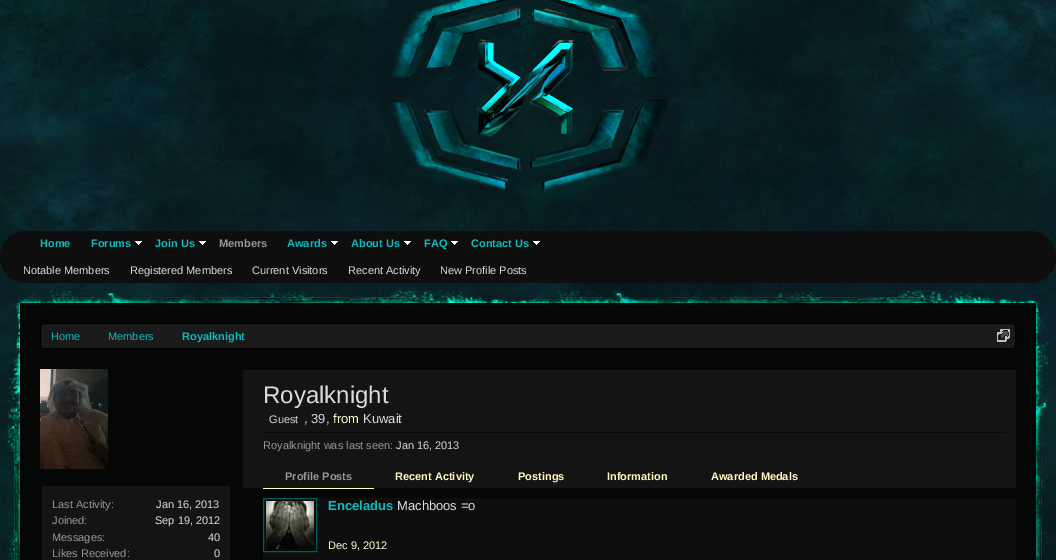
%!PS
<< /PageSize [1056 560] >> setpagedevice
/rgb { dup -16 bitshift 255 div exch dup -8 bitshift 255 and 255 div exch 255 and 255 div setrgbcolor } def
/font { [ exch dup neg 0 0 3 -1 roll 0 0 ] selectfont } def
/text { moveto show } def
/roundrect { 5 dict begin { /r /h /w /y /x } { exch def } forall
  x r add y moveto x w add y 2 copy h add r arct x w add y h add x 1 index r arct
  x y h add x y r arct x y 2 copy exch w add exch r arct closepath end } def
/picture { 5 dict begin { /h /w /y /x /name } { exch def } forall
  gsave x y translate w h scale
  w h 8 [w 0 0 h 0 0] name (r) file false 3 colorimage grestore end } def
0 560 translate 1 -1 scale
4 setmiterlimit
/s1 { /LiberationSans-Bold 11 font 16#969696 rgb } def
/s2 { /LiberationSans-Regular 11 font 16#DBDBDB rgb } def
/s3 { /LiberationSans-Bold 11 font 16#10BABA rgb } def
/s4 { /LiberationSans-Regular 11 font 16#10BABA rgb } def
/s5 { /LiberationSans-Regular 11 font 16#969696 rgb } def
/s6 { /LiberationSans-Regular 24 font 16#DBDBDB rgb } def
/s7 { /LiberationSans-Regular 13 font 16#DBDBDB rgb } def
/s8 { /LiberationSans-Regular 13 font 16#FEFFD2 rgb } def
/s9 { /LiberationSans-Bold 11 font 16#FFFAC1 rgb } def
/s10 { /LiberationSans-Bold 13 font 16#10BABA rgb } def
/s11 { /LiberationSans-Regular 11 font 16#FEFFD2 rgb } def
16#FFFFFF rgb
0 0 1056 560 rectfill
(pic1.raw) 0 0 1056 560 picture
(pic2.raw) 347 0 344 221 picture
16#0E0E0E rgb
0 231 1056 52 26 roundrect fill
s1
(Members) 219 247 text
s2
(Notable Members) 23 274 text
(Registered Members) 130 274 text
(Current Visitors) 252 274 text
(Recent Activity) 348 274 text
(New Profile Posts) 440 274 text
s3
(Home) 40 247 text
(Forums) 91 247 text
(pic3.raw) 131 237 11 15 picture
(Join Us) 155 247 text
(pic3.raw) 195 237 11 15 picture
(Awards) 287 247 text
(pic3.raw) 327 237 11 15 picture
(About Us) 351 247 text
(pic3.raw) 400 237 11 15 picture
(FAQ) 424 247 text
(pic3.raw) 447 237 11 15 picture
(Contact Us) 471 247 text
(pic3.raw) 529 237 11 15 picture
(pic4.raw) 7 289 1043 271 picture
16#050707 rgb
20 303 1016 257 rectfill
16#1A1A1A rgb
40.5 323.5 975 25 3.5 roundrect gsave fill grestore
16#000000 rgb
stroke
s4
(Home) 51 340 text
(Members) 108 340 text
s3
(Royalknight) 182 340 text
(pic5.raw) 997 329 13 13 picture
(pic6.raw) 40 369 68 100 picture
16#141414 rgb
42 486 188 74 rectfill
s5
(Last Activity:) 52 508 text
s2
(Jan 16, 2013) 156 508 text
s5
(Joined:) 52 524 text
s2
(Sep 19, 2012) 155 524 text
s5
(Messages:) 52 541 text
s2
(40) 208 541 text
s5
(Likes Received:) 52 557 text
s2
(0) 214 557 text
16#07080A rgb
242 369 1 191 rectfill
243 369 773 1 rectfill
16#141414 rgb
243 370 773 118 rectfill
s6
(Royalknight) 263 403 text
s2
(Guest) 269 423 text
s7
(, 39,) 304 423 text
s8
(from) 333 423 text
s7
(Kuwait) 363 423 text
16#07080A rgb
263 432 743 1 rectfill
s5
(Royalknight was last seen:) 263 449 text
s2
(Jan 16, 2013) 396 449 text
16#FFFAC1 rgb
263 488 111 1 rectfill
s1
(Profile Posts) 285 480 text
s9
(Recent Activity) 395 480 text
(Postings) 518 480 text
(Information) 607 480 text
(Awarded Medals) 711 480 text
16#0E0E0E rgb
263 498 753 62 rectfill
16#0B0B0B rgb
263.5 498.5 moveto 316.5 498.5 lineto 316.5 551.5 lineto 263.5 551.5 lineto closepath gsave fill grestore
16#005C5C rgb
stroke
(pic7.raw) 266 501 48 48 picture
s10
(Enceladus) 328 510 text
s7
(Machboos =o) 397 510 text
s11
(Dec 9, 2012) 328 549 text
showpage
